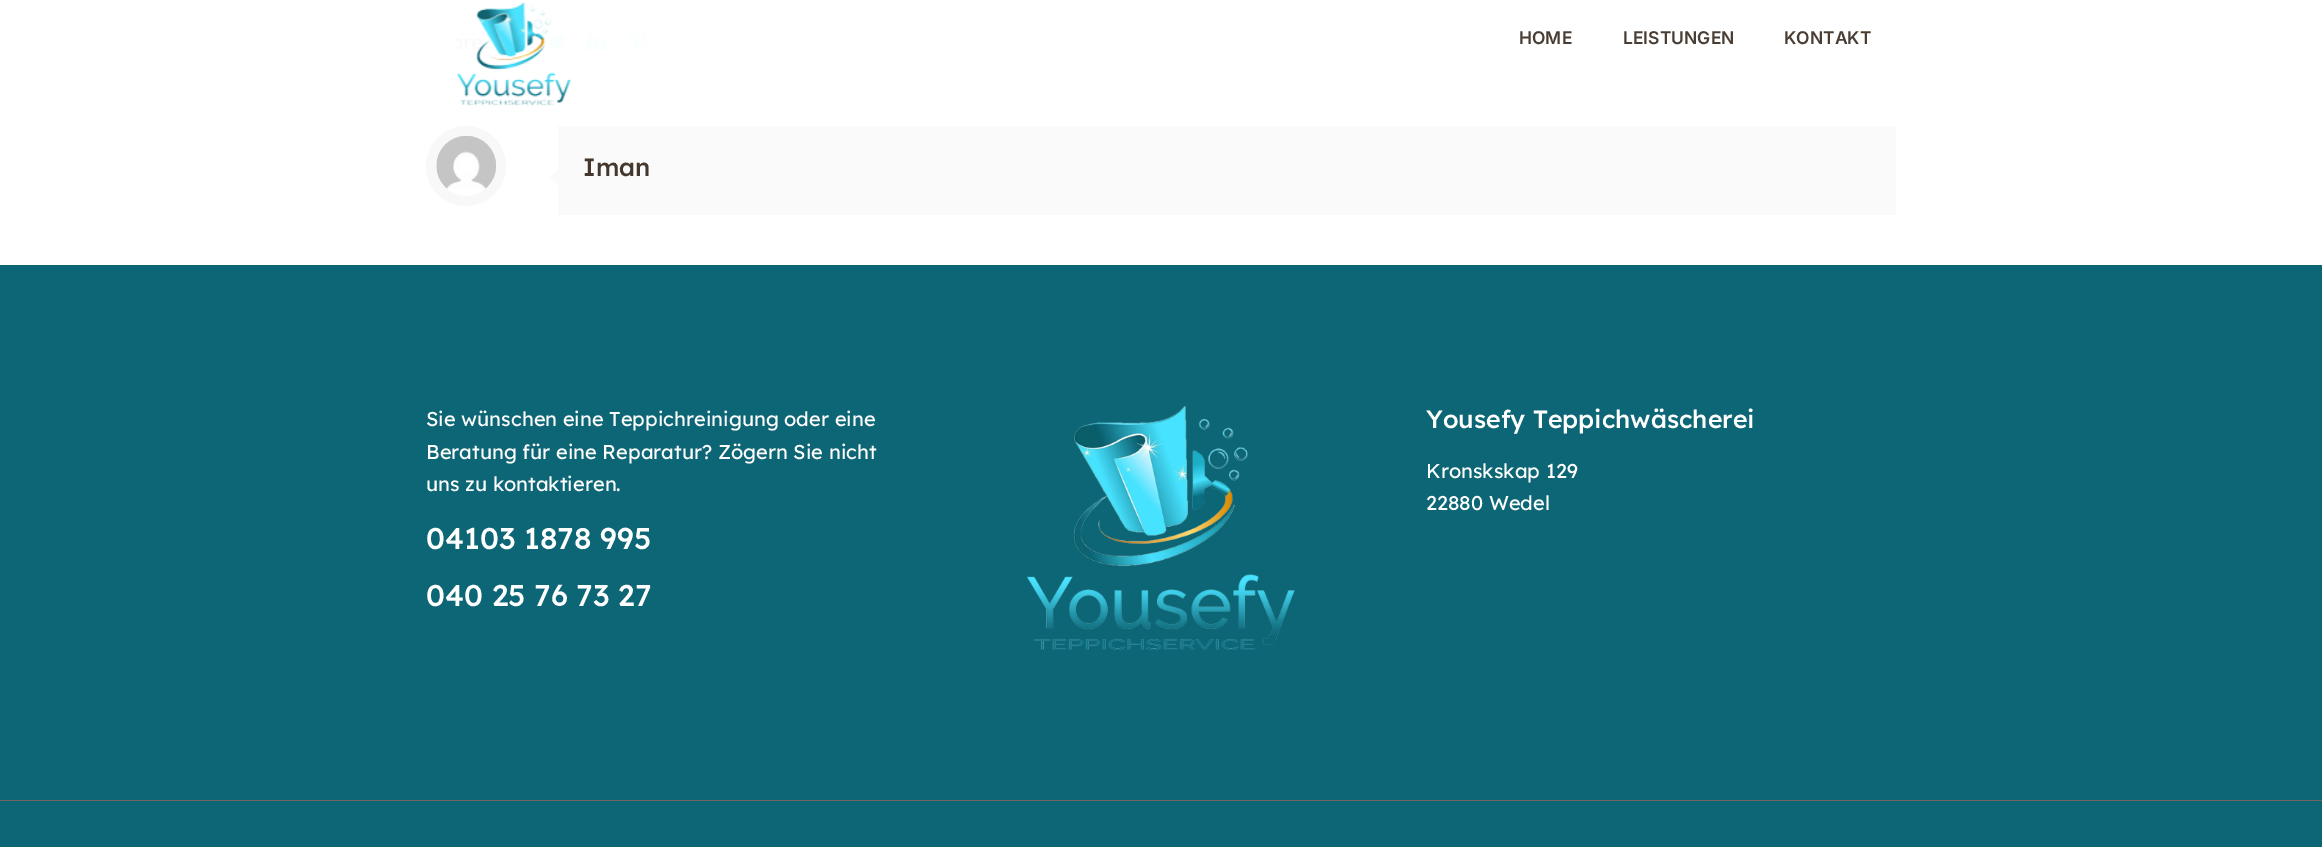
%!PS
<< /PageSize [2322 847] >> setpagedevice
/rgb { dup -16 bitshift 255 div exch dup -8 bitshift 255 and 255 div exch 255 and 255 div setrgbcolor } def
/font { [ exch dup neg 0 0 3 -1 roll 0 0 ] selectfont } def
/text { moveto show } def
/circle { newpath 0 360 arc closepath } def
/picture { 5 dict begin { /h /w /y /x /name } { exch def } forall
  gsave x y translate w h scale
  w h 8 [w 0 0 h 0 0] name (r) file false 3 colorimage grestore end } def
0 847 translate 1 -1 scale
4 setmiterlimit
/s1 { /Inter-SemiBold 17.5 font 16#4A3E34 rgb } def
/s2 { /Lexend-Medium 25 font 16#44382E rgb } def
/s3 { /Lexend-Regular 20 font 16#FFFFFF rgb } def
/s4 { /Lexend-Medium 30 font 16#FFFFFF rgb } def
/s5 { /Lexend-Medium 25 font 16#FFFFFF rgb } def
16#FFFFFF rgb
0 0 2322 847 rectfill
(pic2.raw) 511 32 11 19 picture
(pic3.raw) 547 34 19 16 picture
(pic1.raw) 456 2 116 104 picture
s1
(HOME) 1519 44 text
(LEISTUNGEN) 1623 44 text
(KONTAKT) 1784 44 text
(pic4.raw) 587 32 19 19 picture
(pic5.raw) 630 31 16 21 picture
16#F8F8F8 rgb
10 setlinewidth
466 166 35 circle stroke
(pic6.raw) 436 136 60 53 picture
16#FAFAFA rgb
558 126 1338 89 rectfill
557.5 170 moveto 557.5 185 lineto 550 177.5 lineto closepath fill
s2
(Iman) 583 176 text
16#0D6675 rgb
0 265 2322 582 rectfill
s3
(Sie wünschen eine Teppichreinigung oder eine) 426 426 text
(Beratung für eine Reparatur? Zögern Sie nicht) 426 459 text
(uns zu kontaktieren.) 426 491 text
s4
(04103 1878 995) 426 549 text
(040 25 76 73 27) 426 606 text
(pic7.raw) 1027 406 268 244 picture
s5
(Yousefy Teppichwäscherei) 1426 428 text
s3
(Kronskskap 129) 1426 478 text
(22880 Wedel) 1426 510 text
16#706760 rgb
0 800 2322 1 rectfill
showpage
